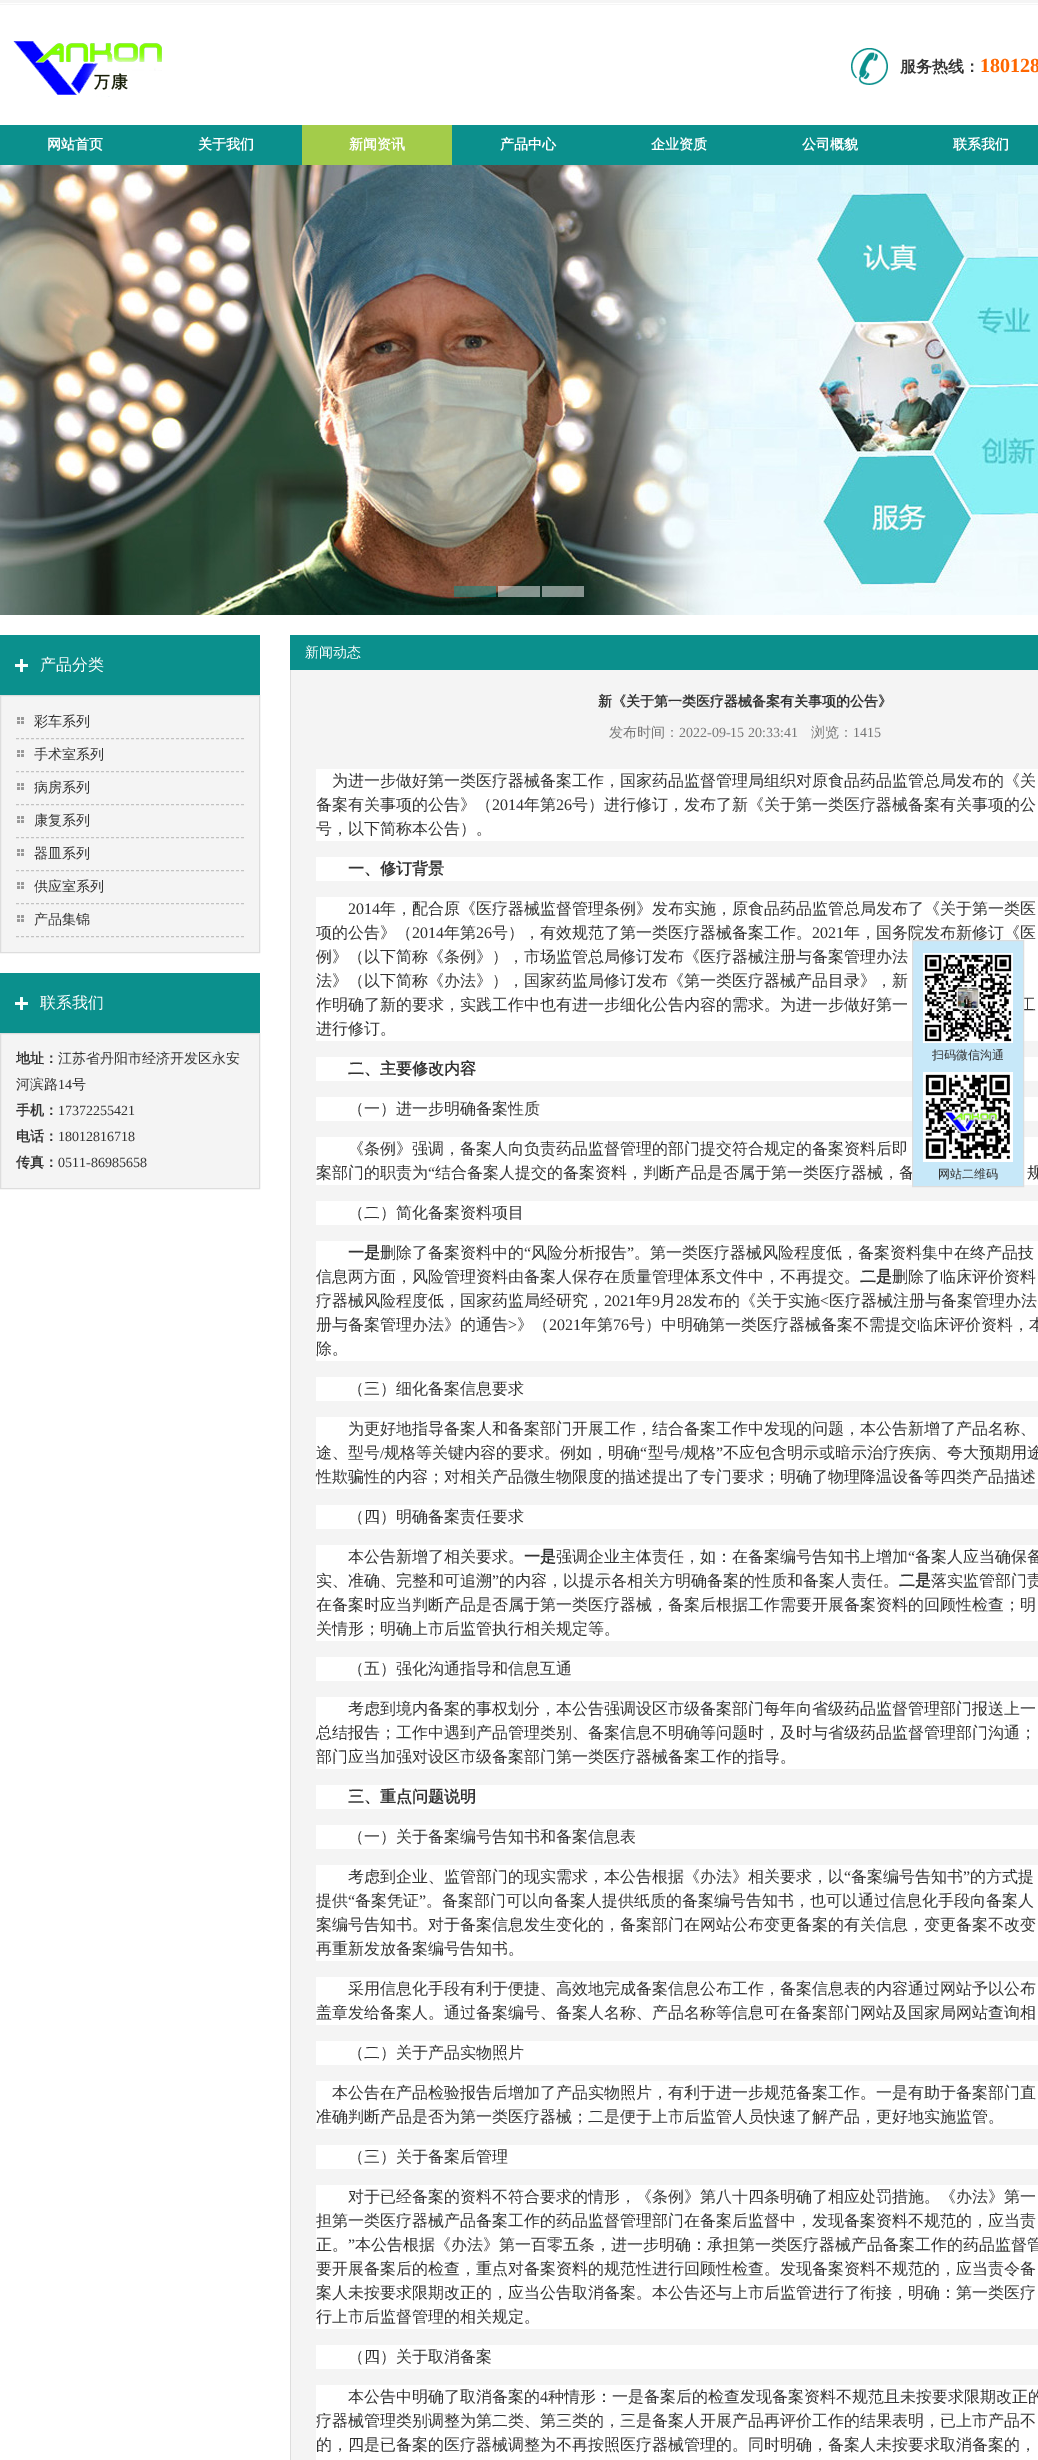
%!PS
<< /PageSize [1038 2460] /PageUsesTransparency true >> setpagedevice
/rgb { dup -16 bitshift 255 div exch dup -8 bitshift 255 and 255 div exch 255 and 255 div setrgbcolor } def
/font { [ exch dup neg 0 0 3 -1 roll 0 0 ] selectfont } def
/text { moveto show } def
/alpha { dup .setfillconstantalpha .setstrokeconstantalpha } def
/picture { 5 dict begin { /h /w /y /x /name } { exch def } forall
  gsave x y translate w h scale
  w h 8 [w 0 0 h 0 0] name (r) file false 3 colorimage grestore end } def
0 .pushpdf14devicefilter
0 2460 translate 1 -1 scale
4 setmiterlimit
/s1 { /WenQuanYiZenHei-Bold 16 font 16#333333 rgb } def
/s2 { /LiberationSerif-Bold 20 font 16#FF6600 rgb } def
/s3 { /WenQuanYiZenHei-Bold 14 font 16#FFFFFF rgb } def
/s4 { /WenQuanYiZenHei-Medium 16 font 16#FFFFFF rgb } def
/s5 { /WenQuanYiZenHei-Medium 14 font 16#333333 rgb } def
/s6 { /WenQuanYiZenHei-Bold 14 font 16#333333 rgb } def
/s7 { /LiberationSerif-Regular 14 font 16#333333 rgb } def
/s8 { /WenQuanYiZenHei-Medium 14 font 16#FFFFFF rgb } def
/s9 { /WenQuanYiZenHei-Medium 14 font 16#777777 rgb } def
/s10 { /LiberationSerif-Regular 14 font 16#777777 rgb } def
/s11 { /WenQuanYiZenHei-Medium 16 font 16#333333 rgb } def
/s12 { /LiberationSerif-Regular 16 font 16#333333 rgb } def
/s13 { /WenQuanYiZenHei-Medium 12 font 16#333333 rgb } def
16#FFFFFF rgb
0 0 1038 2460 rectfill
(pic1.raw) 0 0 1038 5 picture
(pic2.raw) 13 41 149 56 picture
(pic3.raw) 851 48 37 37 picture
s1
(服务热线：) 900 72 text
s2
(180128) 980 72 text
16#0B908D rgb
0 125 1038 40 rectfill
s3
(网站首页) 47 149 text
(关于我们) 198 149 text
16#A3CC4A rgb
302 125 150 40 rectfill
s3
(新闻资讯) 349 149 text
(产品中心) 500 149 text
(企业资质) 651 149 text
(公司概貌) 802 149 text
(联系我们) 953 149 text
(pic4.raw) 0 165 1038 450 picture
0.5 alpha
16#0B908D rgb
454 586 42 11 rectfill
16#FFFFFF rgb
498 586 42 11 rectfill
542 586 42 11 rectfill
1 alpha
16#0B908D rgb
0 635 260 60 rectfill
(pic5.raw) 15 659 13 13 picture
s4
(产品分类) 40 670 text
16#F4F4F4 rgb
0.5 695.5 moveto 259.5 695.5 lineto 259.5 952.5 lineto 0.5 952.5 lineto closepath gsave fill grestore
16#DDDDDD rgb
stroke
16#C2C2C2 rgb
[3 2] 0 setdash
16 738.5 moveto 244 738.5 lineto stroke
(pic6.raw) 17 717 7 7 picture
s5
(彩车系列) 34 726 text
16#C2C2C2 rgb
16 771.5 moveto 244 771.5 lineto stroke
(pic6.raw) 17 750 7 7 picture
s5
(手术室系列) 34 759 text
16#C2C2C2 rgb
16 804.5 moveto 244 804.5 lineto stroke
(pic6.raw) 17 783 7 7 picture
s5
(病房系列) 34 792 text
16#C2C2C2 rgb
16 837.5 moveto 244 837.5 lineto stroke
(pic6.raw) 17 816 7 7 picture
s5
(康复系列) 34 825 text
16#C2C2C2 rgb
16 870.5 moveto 244 870.5 lineto stroke
(pic6.raw) 17 849 7 7 picture
s5
(器皿系列) 34 858 text
16#C2C2C2 rgb
16 903.5 moveto 244 903.5 lineto stroke
(pic6.raw) 17 882 7 7 picture
s5
(供应室系列) 34 891 text
16#C2C2C2 rgb
16 936.5 moveto 244 936.5 lineto stroke
(pic6.raw) 17 915 7 7 picture
s5
(产品集锦) 34 924 text
16#0B908D rgb
0 973 260 60 rectfill
(pic5.raw) 15 997 13 13 picture
s4
(联系我们) 40 1008 text
16#F4F4F4 rgb
0.5 1033.5 moveto 259.5 1033.5 lineto 259.5 1188.5 lineto 0.5 1188.5 lineto closepath gsave fill grestore
16#DDDDDD rgb
[] 0 setdash
stroke
s6
(地址：) 16 1063 text
s5
(江苏省丹阳市经济开发区永安) 58 1063 text
(河滨路) 16 1089 text
s7
(14) 58 1089 text
s5
(号) 72 1089 text
s6
(手机：) 16 1115 text
s7
(17372255421) 58 1115 text
s6
(电话：) 16 1141 text
s7
(18012816718) 58 1141 text
s6
(传真：) 16 1167 text
s7
(0511-86985658) 58 1167 text
16#0B908D rgb
290 635 748 35 rectfill
s8
(新闻动态) 305 657 text
16#F4F4F4 rgb
291 670 747 1790 rectfill
16#DDDDDD rgb
290 670 1 1790 rectfill
s6
(新《关于第一类医疗器械备案有关事项的公告》) 598 706 text
s9
(发布时间：) 609 737 text
s10
(2022-09-15 20:33:41) 679 737 text
s9
(浏览：) 811 737 text
s10
(1415) 853 737 text
16#FFFFFF rgb
316 769 722 72 rectfill
s11
(为进一步做好第一类医疗器械备案工作，国家药品监督管理局组织对原食品药品监管总局发布的《关) 332 786 text
(备案有关事项的公告》（) 316 810 text
s12
(2014) 492 810 text
s11
(年第) 524 810 text
s12
(26) 556 810 text
s11
(号）进行修订，发布了新《关于第一类医疗器械备案有关事项的公) 572 810 text
(号，以下简称本公告）。) 316 834 text
16#FFFFFF rgb
316 857 722 24 rectfill
s1
(一、修订背景) 348 874 text
16#FFFFFF rgb
316 897 722 144 rectfill
s12
(2014) 348 914 text
s11
(年，配合原《医疗器械监督管理条例》发布实施，原食品药品监管总局发布了《关于第一类医) 380 914 text
(项的公告》（) 316 938 text
s12
(2014) 412 938 text
s11
(年第) 444 938 text
s12
(26) 476 938 text
s11
(号），有效规范了第一类医疗器械备案工作。) 492 938 text
s12
(2021) 812 938 text
s11
(年，国务院发布新修订《医) 844 938 text
(例》（以下简称《条例》），市场监管总局修订发布《医疗器械注册与备案管理办法) 316 962 text
(法》（以下简称《办法》），国家药监局修订发布《第一类医疗器械产品目录》，新) 316 986 text
(作明确了新的要求，实践工作中也有进一步细化公告内容的需求。为进一步做好第一) 316 1010 text
(工) 1020 1010 text
(进行修订。) 316 1034 text
16#FFFFFF rgb
316 1057 722 24 rectfill
s1
(二、主要修改内容) 348 1074 text
16#FFFFFF rgb
316 1097 722 24 rectfill
s11
(（一）进一步明确备案性质) 348 1114 text
16#FFFFFF rgb
316 1137 722 48 rectfill
s11
(《条例》强调，备案人向负责药品监督管理的部门提交符合规定的备案资料后即) 348 1154 text
(案部门的职责为) 316 1178 text
s12
(“) 428 1178 text
s11
(结合备案人提交的备案资料，判断产品是否属于第一类医疗器械，备) 435 1178 text
(规) 1027 1178 text
16#FFFFFF rgb
316 1201 722 24 rectfill
s11
(（二）简化备案资料项目) 348 1218 text
16#FFFFFF rgb
316 1241 722 120 rectfill
s1
(一是) 348 1258 text
s11
(删除了备案资料中的) 380 1258 text
s12
(“) 524 1258 text
s11
(风险分析报告) 531 1258 text
s12
(”) 627 1258 text
s11
(。第一类医疗器械风险程度低，备案资料集中在终产品技) 634 1258 text
(信息两方面，风险管理资料由备案人保存在质量管理体系文件中，不再提交。) 316 1282 text
s1
(二是) 860 1282 text
s11
(删除了临床评价资料) 892 1282 text
(疗器械风险程度低，国家药监局经研究，) 316 1306 text
s12
(2021) 604 1306 text
s11
(年) 636 1306 text
s12
(9) 652 1306 text
s11
(月) 660 1306 text
s12
(28) 676 1306 text
s11
(发布的《关于实施) 692 1306 text
s12
(<) 820 1306 text
s11
(医疗器械注册与备案管理办法) 829 1306 text
(册与备案管理办法》的通告) 316 1330 text
s12
(>) 508 1330 text
s11
(》（) 517 1330 text
s12
(2021) 549 1330 text
s11
(年第) 581 1330 text
s12
(76) 613 1330 text
s11
(号）中明确第一类医疗器械备案不需提交临床评价资料，本) 629 1330 text
(除。) 316 1354 text
16#FFFFFF rgb
316 1377 722 24 rectfill
s11
(（三）细化备案信息要求) 348 1394 text
16#FFFFFF rgb
316 1417 722 72 rectfill
s11
(为更好地指导备案人和备案部门开展工作，结合备案工作中发现的问题，本公告新增了产品名称、) 348 1434 text
(途、型号) 316 1458 text
s12
(/) 380 1458 text
s11
(规格等关键内容的要求。例如，明确) 384 1458 text
s12
(“) 640 1458 text
s11
(型号) 648 1458 text
s12
(/) 680 1458 text
s11
(规格) 684 1458 text
s12
(”) 716 1458 text
s11
(不应包含明示或暗示治疗疾病、夸大预期用途) 723 1458 text
(性欺骗性的内容；对相关产品微生物限度的描述提出了专门要求；明确了物理降温设备等四类产品描述) 316 1482 text
16#FFFFFF rgb
316 1505 722 24 rectfill
s11
(（四）明确备案责任要求) 348 1522 text
16#FFFFFF rgb
316 1545 722 96 rectfill
s11
(本公告新增了相关要求。) 348 1562 text
s1
(一是) 524 1562 text
s11
(强调企业主体责任，如：在备案编号告知书上增加) 556 1562 text
s12
(“) 908 1562 text
s11
(备案人应当确保备) 915 1562 text
(实、准确、完整和可追溯) 316 1586 text
s12
(”) 492 1586 text
s11
(的内容，以提示各相关方明确备案的性质和备案人责任。) 499 1586 text
s1
(二是) 899 1586 text
s11
(落实监管部门责) 931 1586 text
(在备案时应当判断产品是否属于第一类医疗器械，备案后根据工作需要开展备案资料的回顾性检查；明) 316 1610 text
(关情形；明确上市后监管执行相关规定等。) 316 1634 text
16#FFFFFF rgb
316 1657 722 24 rectfill
s11
(（五）强化沟通指导和信息互通) 348 1674 text
16#FFFFFF rgb
316 1697 722 72 rectfill
s11
(考虑到境内备案的事权划分，本公告强调设区市级备案部门每年向省级药品监督管理部门报送上一) 348 1714 text
(总结报告；工作中遇到产品管理类别、备案信息不明确等问题时，及时与省级药品监督管理部门沟通；) 316 1738 text
(部门应当加强对设区市级备案部门第一类医疗器械备案工作的指导。) 316 1762 text
16#FFFFFF rgb
316 1785 722 24 rectfill
s1
(三、重点问题说明) 348 1802 text
16#FFFFFF rgb
316 1825 722 24 rectfill
s11
(（一）关于备案编号告知书和备案信息表) 348 1842 text
16#FFFFFF rgb
316 1865 722 96 rectfill
s11
(考虑到企业、监管部门的现实需求，本公告根据《办法》相关要求，以) 348 1882 text
s12
(“) 844 1882 text
s11
(备案编号告知书) 851 1882 text
s12
(”) 963 1882 text
s11
(的方式提) 970 1882 text
(提供) 316 1906 text
s12
(“) 348 1906 text
s11
(备案凭证) 355 1906 text
s12
(”) 419 1906 text
s11
(。备案部门可以向备案人提供纸质的备案编号告知书，也可以通过信息化手段向备案人) 426 1906 text
(案编号告知书。对于备案信息发生变化的，备案部门在网站公布变更备案的有关信息，变更备案不改变) 316 1930 text
(再重新发放备案编号告知书。) 316 1954 text
16#FFFFFF rgb
316 1977 722 48 rectfill
s11
(采用信息化手段有利于便捷、高效地完成备案信息公布工作，备案信息表的内容通过网站予以公布) 348 1994 text
(盖章发给备案人。通过备案编号、备案人名称、产品名称等信息可在备案部门网站及国家局网站查询相) 316 2018 text
16#FFFFFF rgb
316 2041 722 24 rectfill
s11
(（二）关于产品实物照片) 348 2058 text
16#FFFFFF rgb
316 2081 722 48 rectfill
s11
(本公告在产品检验报告后增加了产品实物照片，有利于进一步规范备案工作。一是有助于备案部门直) 332 2098 text
(准确判断产品是否为第一类医疗器械；二是便于上市后监管人员快速了解产品，更好地实施监管。) 316 2122 text
16#FFFFFF rgb
316 2145 722 24 rectfill
s11
(（三）关于备案后管理) 348 2162 text
16#FFFFFF rgb
316 2185 722 144 rectfill
s11
(对于已经备案的资料不符合要求的情形，《条例》第八十四条明确了相应处罚措施。《办法》第一) 348 2202 text
(担第一类医疗器械产品备案工作的药品监督管理部门在备案后监督中，发现备案资料不规范的，应当责) 316 2226 text
(正。) 316 2250 text
s12
(”) 348 2250 text
s11
(本公告根据《办法》第一百零五条，进一步明确：承担第一类医疗器械产品备案工作的药品监督管) 355 2250 text
(要开展备案后的检查，重点对备案资料的规范性进行回顾性检查。发现备案资料不规范的，应当责令备) 316 2274 text
(案人未按要求限期改正的，应当公告取消备案。本公告还与上市后监管进行了衔接，明确：第一类医疗) 316 2298 text
(行上市后监督管理的相关规定。) 316 2322 text
16#FFFFFF rgb
316 2345 722 24 rectfill
s11
(（四）关于取消备案) 348 2362 text
16#FFFFFF rgb
316 2385 722 75 rectfill
s11
(本公告中明确了取消备案的) 348 2402 text
s12
(4) 540 2402 text
s11
(种情形：一是备案后的检查发现备案资料不规范且未按要求限期改正的) 548 2402 text
(疗器械管理类别调整为第二类、第三类的，三是备案人开展产品再评价工作的结果表明，已上市产品不) 316 2426 text
(的，四是已备案的医疗器械调整为不再按照医疗器械管理的。同时明确，备案人未按要求取消备案的，) 316 2450 text
16#C7E8F9 rgb
912.5 940.5 moveto 1023.5 940.5 lineto 1023.5 1186.5 lineto 912.5 1186.5 lineto closepath gsave fill grestore
16#DDDDDD rgb
stroke
(pic7.raw) 923 953 90 90 picture
s13
(扫码微信沟通) 932 1059 text
(pic8.raw) 923 1072 90 90 picture
(网站二维码) 938 1178 text
.poppdf14devicefilter showpage
